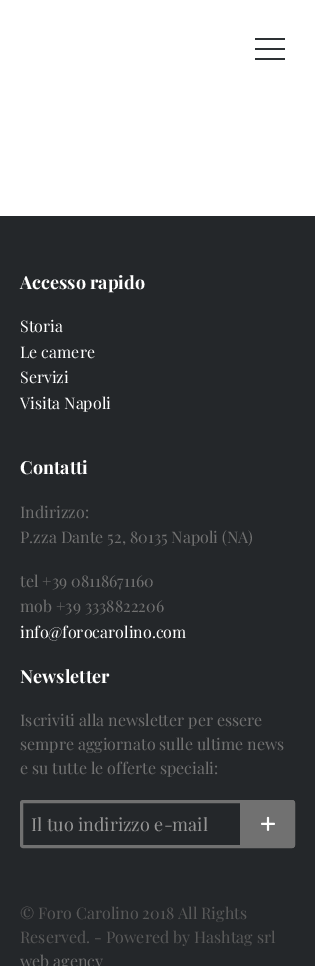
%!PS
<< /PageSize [315 966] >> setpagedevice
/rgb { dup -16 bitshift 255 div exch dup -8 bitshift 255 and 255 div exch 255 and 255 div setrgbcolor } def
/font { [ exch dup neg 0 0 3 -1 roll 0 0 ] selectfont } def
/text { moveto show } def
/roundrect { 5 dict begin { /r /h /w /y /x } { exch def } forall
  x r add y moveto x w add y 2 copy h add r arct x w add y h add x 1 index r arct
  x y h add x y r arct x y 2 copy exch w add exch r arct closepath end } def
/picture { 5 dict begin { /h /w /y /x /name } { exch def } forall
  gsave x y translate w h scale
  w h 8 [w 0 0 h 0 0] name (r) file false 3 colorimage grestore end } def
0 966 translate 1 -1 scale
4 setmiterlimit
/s1 { /PlayfairDisplay-Bold 18 font 16#FFFFFF rgb } def
/s2 { /PlayfairDisplay-Regular 16 font 16#FFFFFF rgb } def
/s3 { /PlayfairDisplay-Regular 16 font 16#717171 rgb } def
/s4 { /PlayfairDisplay-Regular 18 font 16#959595 rgb } def
/s5 { /PlayfairDisplay-Regular 16 font 16#595959 rgb } def
16#FFFFFF rgb
0 0 315 966 rectfill
16#2D3134 rgb
255 48 30 2 rectfill
255 38 30 2 rectfill
255 58 30 2 rectfill
16#24272A rgb
0 216 315 750 rectfill
s1
(Accesso rapido) 20 289 text
s2
(Storia) 20 332 text
(Le camere) 20 358 text
(Servizi) 20 383 text
(Visita Napoli) 20 409 text
s1
(Contatti) 20 474 text
s3
(Indirizzo:) 20 518 text
(P.zza Dante 52, 80135 Napoli \(NA\)) 20 543 text
(tel +39 08118671160) 20 587 text
(mob +39 3338822206) 20 612 text
s2
(info@forocarolino.com) 20 638 text
s1
(Newsletter) 20 683 text
s3
(Iscriviti alla newsletter per essere) 20 726 text
(sempre aggiornato sulle ultime news) 20 750 text
(e su tutte le offerte speciali:) 20 774 text
3 setlinewidth
21.5 801.5 272 45 1.5 roundrect stroke
s4
(Il tuo indirizzo e-mail) 31 831 text
16#717171 rgb
240 800 moveto 292 800 lineto 293.5 800 295 801.5 295 803 curveto 295 845 lineto 295 846.5 293.5 848 292 848 curveto 240 848 lineto closepath fill
(pic1.raw) 261 816 14 15 picture
s5
(© Foro Carolino 2018 All Rights) 20 919 text
(Reserved. - Powered by Hashtag srl) 20 943 text
s3
(web agency) 20 967 text
showpage
